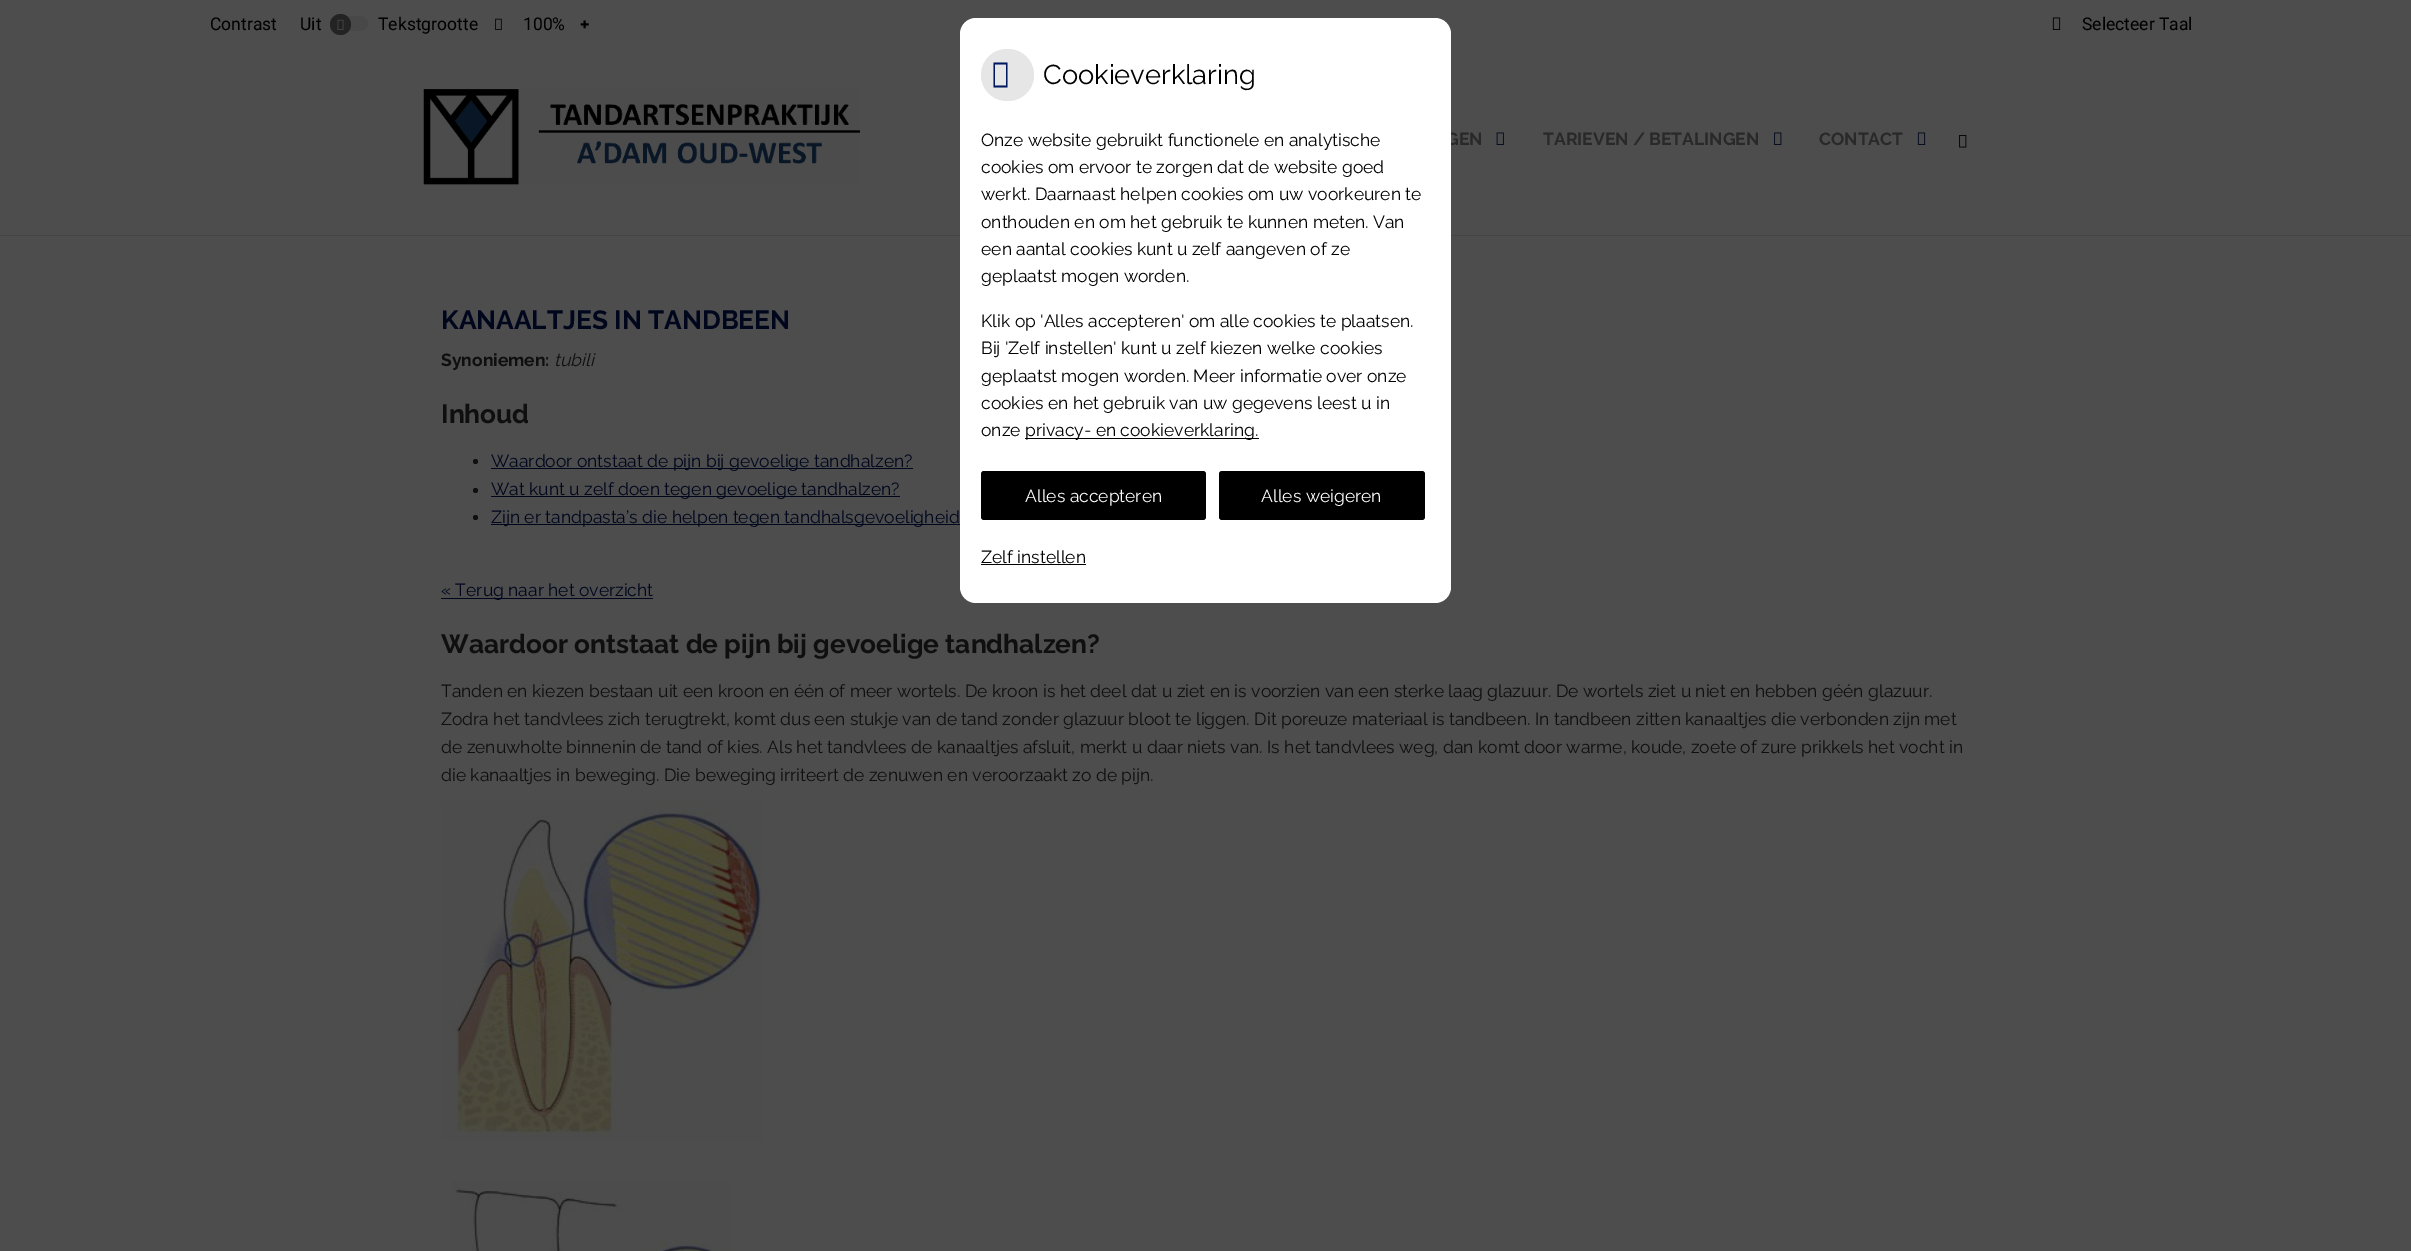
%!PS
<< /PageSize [2411 1251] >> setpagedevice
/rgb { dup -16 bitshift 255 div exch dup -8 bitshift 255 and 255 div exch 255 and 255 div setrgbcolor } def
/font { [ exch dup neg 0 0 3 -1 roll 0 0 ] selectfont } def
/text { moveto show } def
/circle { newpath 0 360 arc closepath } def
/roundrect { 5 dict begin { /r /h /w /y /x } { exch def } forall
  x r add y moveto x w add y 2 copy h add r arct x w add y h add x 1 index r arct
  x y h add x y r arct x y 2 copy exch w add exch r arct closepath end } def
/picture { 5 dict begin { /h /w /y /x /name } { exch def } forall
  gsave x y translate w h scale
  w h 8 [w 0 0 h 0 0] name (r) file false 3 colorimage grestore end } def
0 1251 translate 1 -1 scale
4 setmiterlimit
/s1 { /Roboto-Regular 17.5 font 16#000000 rgb } def
/s2 { /NotoSans-Black 16 font 16#000000 rgb } def
/s3 { /Raleway-Bold 17.5 font 16#292929 rgb } def
/s4 { /Raleway-Regular 27.25 font 16#000000 rgb } def
/s5 { /Raleway-Regular 17.5 font 16#000000 rgb } def
/s6 { /Raleway-Regular 17.5 font 16#FFFFFF rgb } def
/s7 { /Raleway-Bold 26.25 font 16#00071D rgb } def
/s8 { /Raleway-Bold 17.5 font 16#0F0F0F rgb } def
/s9 { /Raleway-Italic 17.5 font 16#0F0F0F rgb } def
/s10 { /Raleway-Bold 26.25 font 16#0F0F0F rgb } def
/s11 { /Raleway-Regular 17.5 font 16#00071D rgb } def
/s12 { /Raleway-Regular 17.5 font 16#0F0F0F rgb } def
16#4D4D4D rgb
0 0 2411 1251 rectfill
s1
(Contrast) 210 30 text
16#494848 rgb
330 16 38 15 7.5 roundrect fill
16#232323 rgb
340.5 24.5 10.5 circle fill
(pic1.raw) 337 19 7 11 picture
s1
(Uit) 300 30 text
(Tekstgrootte) 378 30 text
(pic2.raw) 495 18 7 12 picture
(100%) 523 30 text
s2
(+) 580 30 text
(pic3.raw) 2052 17 9 13 picture
s1
(Selecteer Taal) 2082 30 text
16#454545 rgb
0 235 2411 1 rectfill
s3
(GEN) 1446 145 text
16#00071D rgb
491 524 477 1 rectfill
16#FFFFFF rgb
960 18 491 585 16 roundrect fill
16#E6E6E6 rgb
981 49 53 52 26 roundrect fill
16#001860 rgb
993.5 87.5 moveto 993.5 62.5 lineto 1007.5 62.5 lineto 1007.5 87.5 lineto closepath 995 85.5 moveto 1006 85.5 lineto 1006 64.5 lineto 995 64.5 lineto closepath fill
s4
(Cookieverklaring) 1043 84 text
s5
(Onze website gebruikt functionele en analytische) 981 146 text
(cookies om ervoor te zorgen dat de website goed) 981 173 text
(werkt. Daarnaast helpen cookies om uw voorkeuren te) 981 200 text
(onthouden en om het gebruik te kunnen meten. Van) 981 228 text
(een aantal cookies kunt u zelf aangeven of ze) 981 255 text
(geplaatst mogen worden.) 981 282 text
(Klik op 'Alles accepteren' om alle cookies te plaatsen.) 981 327 text
(Bij 'Zelf instellen' kunt u zelf kiezen welke cookies) 981 354 text
(geplaatst mogen worden. Meer informatie over onze) 981 382 text
(cookies en het gebruik van uw gegevens leest u in) 981 409 text
(onze) 981 436 text
1025 438 234 1 rectfill
(privacy- en cookieverklaring.) 1025 436 text
981 471 225 49 3 roundrect fill
s6
(Alles accepteren) 1025 502 text
16#000000 rgb
1219 471 206 49 3 roundrect fill
s6
(Alles weigeren) 1261 502 text
s5
(Zelf instellen) 981 563 text
981 564 105 1 rectfill
(pic4.raw) 423 89 437 96 picture
(pic5.raw) 1496 132 8 13 picture
s3
(TARIEVEN / BETALINGEN) 1543 145 text
(pic6.raw) 1774 132 8 13 picture
(CONTACT) 1819 145 text
(pic7.raw) 1917 132 9 13 picture
(pic8.raw) 1959 135 8 13 picture
s7
(KANAALTJES IN TANDBEEN) 441 329 text
s8
(Synoniemen:) 441 366 text
s9
(tubili) 554 366 text
s10
(Inhoud) 441 423 text
475.5 461.5 2.5 circle fill
16#00071D rgb
491 468 422 1 rectfill
s11
(Waardoor ontstaat de pijn bij gevoelige tandhalzen?) 491 467 text
16#0F0F0F rgb
475.5 490.5 2.5 circle fill
16#00071D rgb
491 496 409 1 rectfill
(Wat kunt u zelf doen tegen gevoelige tandhalzen?) 491 495 text
16#0F0F0F rgb
475.5 517.5 2.5 circle fill
s11
(Zijn er tandpasta’s die helpen tegen tandhalsgevoeligheid) 491 523 text
441 598 212 1 rectfill
(« Terug naar het overzicht) 441 596 text
s10
(Waardoor ontstaat de pijn bij gevoelige tandhalzen?) 441 653 text
s12
(Tanden en kiezen bestaan uit een kroon en één of meer wortels. De kroon is het deel dat u ziet en is voorzien van een sterke laag glazuur. De wortels ziet u niet en hebben géén glazuur.) 441 697 text
(Zodra het tandvlees zich terugtrekt, komt dus een stukje van de tand zonder glazuur bloot te liggen. Dit poreuze materiaal is tandbeen. In tandbeen zitten kanaaltjes die verbonden zijn met) 441 725 text
(de zenuwholte binnenin de tand of kies. Als het tandvlees de kanaaltjes afsluit, merkt u daar niets van. Is het tandvlees weg, dan komt door warme, koude, zoete of zure prikkels het vocht in) 441 753 text
(die kanaaltjes in beweging. Die beweging irriteert de zenuwen en veroorzaakt zo de pijn.) 441 781 text
(pic9.raw) 441 801 321 340 picture
(pic10.raw) 451 1181 281 70 picture
showpage
